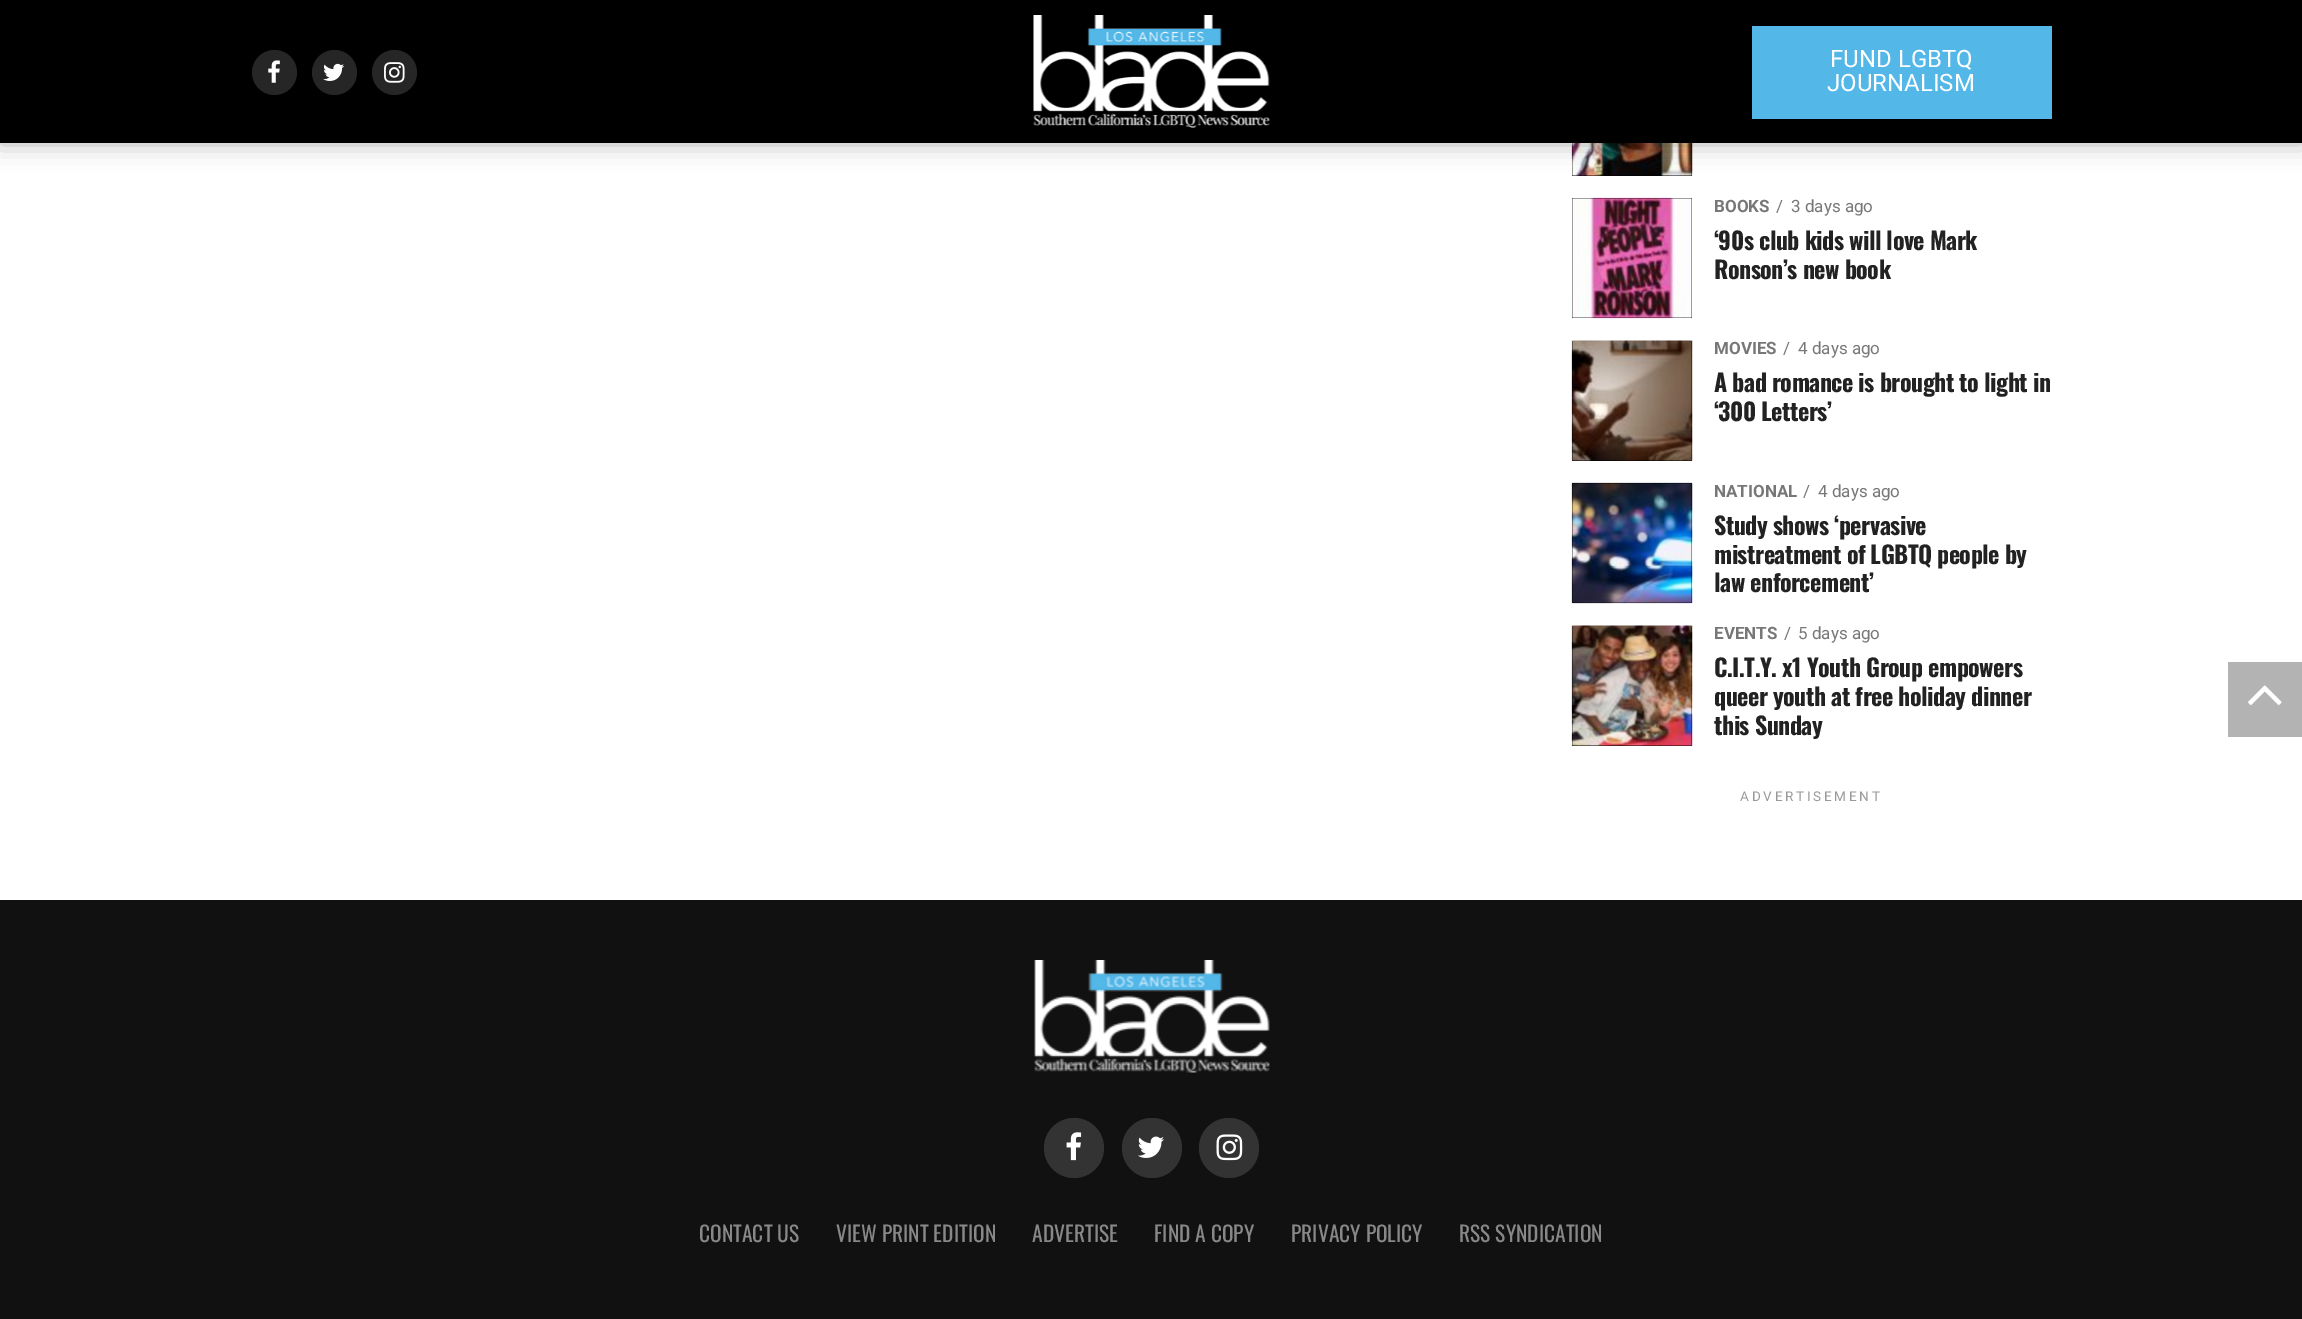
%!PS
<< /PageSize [2302 1319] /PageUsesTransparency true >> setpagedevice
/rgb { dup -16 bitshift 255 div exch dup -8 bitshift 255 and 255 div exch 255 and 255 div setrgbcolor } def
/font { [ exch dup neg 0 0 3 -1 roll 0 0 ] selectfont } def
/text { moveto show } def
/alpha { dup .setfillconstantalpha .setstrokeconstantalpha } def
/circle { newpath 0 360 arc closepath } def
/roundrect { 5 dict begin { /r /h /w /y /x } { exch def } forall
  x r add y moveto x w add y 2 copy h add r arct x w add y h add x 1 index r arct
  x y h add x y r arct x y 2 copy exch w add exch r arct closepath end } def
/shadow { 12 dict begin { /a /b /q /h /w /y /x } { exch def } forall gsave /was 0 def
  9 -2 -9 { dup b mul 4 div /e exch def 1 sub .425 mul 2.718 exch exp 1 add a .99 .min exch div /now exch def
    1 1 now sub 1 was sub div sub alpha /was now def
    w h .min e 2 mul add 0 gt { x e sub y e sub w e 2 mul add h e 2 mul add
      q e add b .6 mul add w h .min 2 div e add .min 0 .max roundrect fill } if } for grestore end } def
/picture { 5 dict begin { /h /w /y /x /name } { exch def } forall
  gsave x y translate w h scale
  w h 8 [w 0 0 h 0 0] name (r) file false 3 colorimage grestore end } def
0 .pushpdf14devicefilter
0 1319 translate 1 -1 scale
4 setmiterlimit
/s1 { /Roboto-Regular 24 font 16#FFFFFF rgb } def
/s2 { /Roboto-Bold 17 font 16#777777 rgb } def
/s3 { /Roboto-Regular 17 font 16#777777 rgb } def
/s4 { /Oswald-Regular 21.5 font 16#888888 rgb } def
16#FFFFFF rgb
0 0 2302 1319 rectfill
16#000000 rgb
1572 143 120 33 rectfill
(pic5.raw) 1571 143 122 33 picture
0 2 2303 142 0 12 0.3 shadow
0 0 2302 143 rectfill
16#262626 rgb
274.5 72.5 22.5 circle fill
(pic1.raw) 268 60 12 23 picture
334.5 72.5 22.5 circle fill
(pic2.raw) 323 63 21 18 picture
394.5 72.5 22.5 circle fill
(pic3.raw) 384 62 21 21 picture
(pic4.raw) 1033 15 237 113 picture
16#53B7E8 rgb
1752 26 300 93 rectfill
s1
(FUND LGBTQ) 1830 67 text
(JOURNALISM) 1827 91 text
16#000000 rgb
1572 198 120 120 rectfill
(pic6.raw) 1572 197 120 122 picture
s2
(BOOKS) 1714 212 text
s3
(/) 1776 212 text
(3 days ago) 1791 212 text
/Oswald-Bold 24 font
16#222222 rgb
1714 250 moveto -0.5 0 (‘90s club kids will love Mark) ashow
1714 279 moveto -0.5 0 (Ronson’s new book) ashow
16#000000 rgb
1572 341 120 120 rectfill
(pic7.raw) 1571 340 122 121 picture
s2
(MOVIES) 1714 354 text
s3
(/) 1783 354 text
(4 days ago) 1798 354 text
/Oswald-Bold 24 font
16#222222 rgb
1714 392 moveto -0.5 0 (A bad romance is brought to light in) ashow
1714 421 moveto -0.5 0 (‘300 Letters’) ashow
16#000000 rgb
1572 483 120 120 rectfill
(pic8.raw) 1571 482 122 122 picture
s2
(NATIONAL) 1714 497 text
s3
(/) 1803 497 text
(4 days ago) 1818 497 text
/Oswald-Bold 24 font
16#222222 rgb
1714 535 moveto -0.5 0 (Study shows ‘pervasive) ashow
1714 564 moveto -0.5 0 (mistreatment of LGBTQ people by) ashow
1714 592 moveto -0.5 0 (law enforcement’) ashow
16#000000 rgb
1572 626 120 120 rectfill
(pic9.raw) 1571 625 122 121 picture
s2
(EVENTS) 1714 639 text
s3
(/) 1784 639 text
(5 days ago) 1798 639 text
/Oswald-Bold 24 font
16#222222 rgb
1714 677 moveto -0.5 0 (C.I.T.Y. x1 Youth Group empowers) ashow
1714 706 moveto -0.5 0 (queer youth at free holiday dinner) ashow
1714 735 moveto -0.5 0 (this Sunday) ashow
/Roboto-Regular 13.5 font
16#999999 rgb
1740 801 moveto 2.75 0 (ADVERTISEMENT) ashow
16#111111 rgb
0 900 2302 419 rectfill
(pic10.raw) 1034 960 236 113 picture
16#333333 rgb
1074 1148 30 circle fill
(pic11.raw) 1066 1132 16 29 picture
1152 1148 30 circle fill
(pic12.raw) 1138 1136 26 22 picture
1229 1148 30 circle fill
(pic13.raw) 1216 1134 27 27 picture
s4
(CONTACT US) 699 1242 text
(VIEW PRINT EDITION) 836 1242 text
(ADVERTISE) 1032 1242 text
(FIND A COPY) 1154 1242 text
(PRIVACY POLICY) 1291 1242 text
(RSS SYNDICATION) 1459 1242 text
16#B3B3B3 rgb
2228 662 74 75 rectfill
(pic14.raw) 2248 685 34 20 picture
.poppdf14devicefilter showpage
